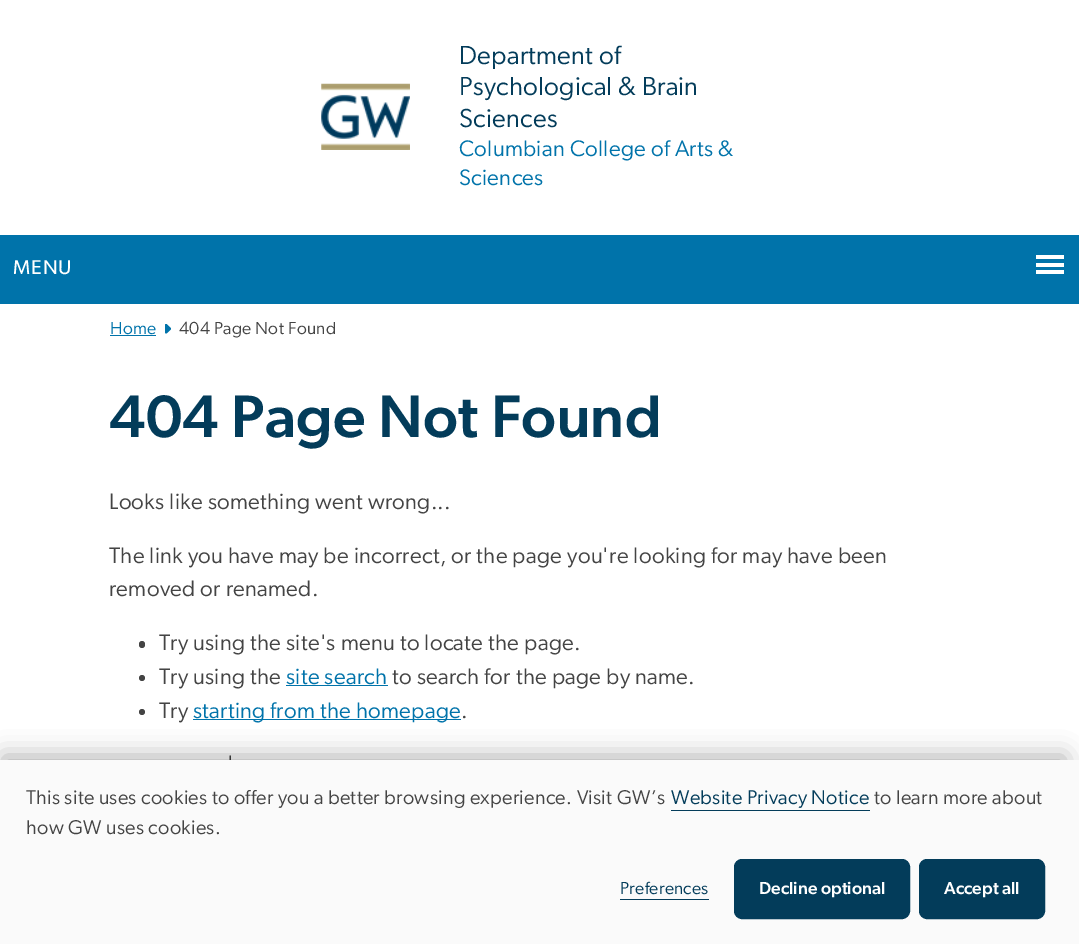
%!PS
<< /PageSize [1079 944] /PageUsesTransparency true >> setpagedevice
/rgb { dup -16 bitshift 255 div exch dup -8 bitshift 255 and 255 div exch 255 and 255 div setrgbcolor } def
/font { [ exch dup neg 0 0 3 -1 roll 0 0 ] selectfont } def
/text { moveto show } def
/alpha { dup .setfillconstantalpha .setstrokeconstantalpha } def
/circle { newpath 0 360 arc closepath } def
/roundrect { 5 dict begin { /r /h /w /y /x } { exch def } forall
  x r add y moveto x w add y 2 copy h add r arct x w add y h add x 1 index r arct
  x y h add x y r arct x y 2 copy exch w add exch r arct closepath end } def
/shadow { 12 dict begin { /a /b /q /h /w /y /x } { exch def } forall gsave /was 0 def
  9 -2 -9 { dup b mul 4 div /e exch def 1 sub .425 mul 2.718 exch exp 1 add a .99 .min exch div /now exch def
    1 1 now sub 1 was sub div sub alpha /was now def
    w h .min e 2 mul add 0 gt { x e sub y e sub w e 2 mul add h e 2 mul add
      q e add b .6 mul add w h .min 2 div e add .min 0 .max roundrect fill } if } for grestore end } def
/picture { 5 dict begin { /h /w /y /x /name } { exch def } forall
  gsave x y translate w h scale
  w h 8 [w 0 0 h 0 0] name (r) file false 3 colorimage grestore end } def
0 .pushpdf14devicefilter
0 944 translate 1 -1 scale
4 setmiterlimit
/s1 { /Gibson-Medium 17.5 font 16#FFFFFF rgb } def
16#FFFFFF rgb
0 0 1079 944 rectfill
(pic1.raw) 321 83 89 67 picture
/Gibson-Regular 26.25 font
16#033C5A rgb
459 64 moveto 0.3 0 (Department of) ashow
459 95 moveto 0.3 0 (Psychological & Brain) ashow
459 127 moveto 0.3 0 (Sciences) ashow
/Gibson-Regular 22.5 font
16#0073AA rgb
459 156 moveto 0.3 0 (Columbian College of Arts &) ashow
459 185 moveto 0.3 0 (Sciences) ashow
0 235 1079 69 rectfill
/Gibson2-Regular 20 font
16#FFFFFF rgb
13 274 moveto 1 0 (MENU) ashow
1036 255 28 4 rectfill
1036 263 28 4 rectfill
1036 270 28 4 rectfill
/Gibson-Regular 17.5 font
16#0073AA rgb
110 334 moveto 0.3 0 (Home) ashow
110 335 46 1 rectfill
(pic2.raw) 165 324 6 10 picture
16#444444 rgb
179 334 moveto 0.3 0 (404 Page Not Found) ashow
/Gibson-Medium 60 font
16#033C5A rgb
109 437 moveto 0.3 0 (404 Page Not Found) ashow
/Gibson-Regular 22.5 font
16#444444 rgb
109 509 moveto 0.3 0 (Looks like something went wrong...) ashow
109 563 moveto 0.3 0 (The link you have may be incorrect, or the page you're looking for may have been) ashow
109 596 moveto 0.3 0 (removed or renamed.) ashow
139 641 6 7 3 roundrect fill
159 650 moveto 0.3 0 (Try using the site's menu to locate the page.) ashow
142 678 3 circle fill
159 684 moveto 0.3 0 (Try using the) ashow
16#0073AA rgb
286 684 moveto 0.3 0 (site search) ashow
286 685 102 1 rectfill
16#444444 rgb
392 684 moveto 0.3 0 (to search for the page by name.) ashow
142 712 3 circle fill
159 718 moveto 0.3 0 (Try) ashow
16#0073AA rgb
193 719 268 1 rectfill
193 718 moveto 0.3 0 (starting from the homepage) ashow
16#444444 rgb
461 718 moveto 0.3 0 (.) ashow
227 771 moveto 0.3 0 (') ashow
16#050505 rgb
3 756 1062 168 0 12 0.32 shadow
16#FAFAFA rgb
0 760 1079 184 rectfill
/Gibson-Regular 20 font
16#444444 rgb
26 804 moveto 0.3 0 (This site uses cookies to offer you a better browsing experience. Visit GW’s) ashow
16#033C5A rgb
671 810 199 1 rectfill
671 804 moveto 0.3 0 (Website Privacy Notice) ashow
16#444444 rgb
874 804 moveto 0.3 0 (to learn more about) ashow
26 834 moveto 0.3 0 (how GW uses cookies.) ashow
16#033C5A rgb
620 899 89 1 rectfill
/Gibson-Regular 17.5 font
620 894 moveto 0.3 0 (Preferences) ashow
736 861 172 56 6 roundrect gsave fill grestore
4 setlinewidth
stroke
s1
(Decline optional) 759 894 text
16#033C5A rgb
921 861 122 56 6 roundrect gsave fill grestore
stroke
s1
(Accept all) 944 894 text
.poppdf14devicefilter showpage
